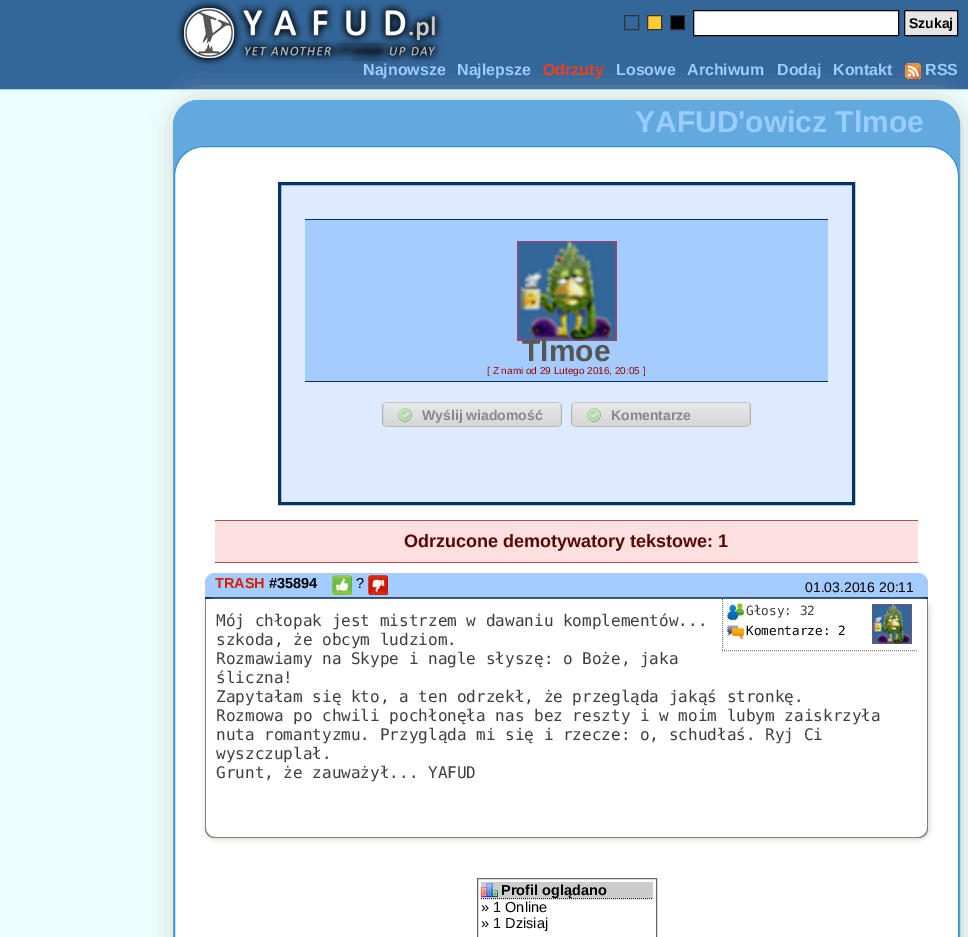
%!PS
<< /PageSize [968 937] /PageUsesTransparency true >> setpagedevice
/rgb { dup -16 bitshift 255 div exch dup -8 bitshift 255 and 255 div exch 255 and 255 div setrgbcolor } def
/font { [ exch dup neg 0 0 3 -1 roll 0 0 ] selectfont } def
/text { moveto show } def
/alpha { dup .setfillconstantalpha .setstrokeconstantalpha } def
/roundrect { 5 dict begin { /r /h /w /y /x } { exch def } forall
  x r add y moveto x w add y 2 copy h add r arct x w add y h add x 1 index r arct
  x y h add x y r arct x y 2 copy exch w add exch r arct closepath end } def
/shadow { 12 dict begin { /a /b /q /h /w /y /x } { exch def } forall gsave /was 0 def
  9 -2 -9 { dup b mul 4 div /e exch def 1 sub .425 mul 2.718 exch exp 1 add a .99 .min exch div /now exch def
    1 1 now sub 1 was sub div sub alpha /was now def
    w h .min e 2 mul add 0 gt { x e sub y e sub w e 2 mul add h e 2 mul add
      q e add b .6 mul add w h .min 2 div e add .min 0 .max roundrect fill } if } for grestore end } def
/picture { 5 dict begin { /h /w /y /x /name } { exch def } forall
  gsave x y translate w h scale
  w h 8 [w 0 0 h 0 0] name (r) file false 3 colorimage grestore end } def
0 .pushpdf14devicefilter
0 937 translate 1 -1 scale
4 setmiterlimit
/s1 { /LiberationSans-Bold 14 font 16#000000 rgb } def
/s2 { /LiberationSans-Bold 16 font 16#99CCFF rgb } def
/s3 { /LiberationSans-Bold 16 font 16#FC3911 rgb } def
/s4 { /LiberationSans-Bold 30 font 16#99CCFF rgb } def
/s5 { /LiberationSans-Bold 30 font 16#555555 rgb } def
/s6 { /LiberationSans-Regular 10 font 16#990000 rgb } def
/s7 { /LiberationSans-Bold 14 font 16#888888 rgb } def
/s8 { /LiberationSans-Bold 18 font 16#580505 rgb } def
/s9 { /LiberationSans-Bold 14.5 font 16#D51F00 rgb } def
/s10 { /LiberationSans-Bold 14.5 font 16#000000 rgb } def
/s11 { /LiberationSans-Regular 14.5 font 16#000000 rgb } def
/s12 { /LiberationSans-Regular 14 font 16#000000 rgb } def
/s13 { /DejaVuSansMono-Regular 16 font 16#3F3F3F rgb } def
/s14 { /DejaVuSansMono-Regular 12.75 font 16#3F3F3F rgb } def
/s15 { /DejaVuSansMono-Regular 12.75 font 16#000000 rgb } def
16#ECFFFF rgb
0 0 968 937 rectfill
16#336699 rgb
0 0 968 89 rectfill
16#A5CCFF rgb
0 89 968 1 rectfill
(pic1.raw) 176 0 267 66 picture
16#333333 rgb
624.5 15.5 14 14 rectstroke
16#FFCC33 rgb
647.5 15.5 moveto 661.5 15.5 lineto 661.5 29.5 lineto 647.5 29.5 lineto closepath gsave fill grestore
16#333333 rgb
stroke
16#000000 rgb
670.5 15.5 moveto 684.5 15.5 lineto 684.5 29.5 lineto 670.5 29.5 lineto closepath gsave fill grestore
16#333333 rgb
stroke
16#FFFFFF rgb
693.5 10.5 moveto 898.5 10.5 lineto 898.5 35.5 lineto 693.5 35.5 lineto closepath gsave fill grestore
16#000000 rgb
stroke
16#E6E6E6 rgb
904.5 10.5 moveto 957.5 10.5 lineto 957.5 35.5 lineto 904.5 35.5 lineto closepath gsave fill grestore
16#000000 rgb
stroke
s1
(Szukaj) 909 28 text
s2
(Najnowsze) 363 75 text
(Najlepsze) 457 75 text
s3
(Odrzuty) 543 75 text
s2
(Losowe) 616 75 text
(Archiwum) 687 75 text
(Dodaj) 777 75 text
(Kontakt) 833 75 text
(pic2.raw) 905 63 16 16 picture
(RSS) 925 75 text
16#D2D1C4 rgb
174 101 787 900 25 13 1 shadow
16#61A9DF rgb
173.5 100.5 786 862 24.5 roundrect gsave fill grestore
stroke
s4
(YAFUD'owicz Tlmoe) 635 132 text
16#FFFFFF rgb
174.5 146.5 784 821 29.5 roundrect gsave fill grestore
16#338DCF rgb
stroke
16#DDEAFF rgb
279.5 183.5 moveto 853.5 183.5 lineto 853.5 503.5 lineto 279.5 503.5 lineto closepath gsave fill grestore
16#003366 rgb
3 setlinewidth
stroke
16#A5CCFF rgb
305 220 523 161 rectfill
16#003366 rgb
305 219 523 1 rectfill
305 381 523 1 rectfill
(pic3.raw) 517 241 100 100 picture
s5
(Tlmoe) 522 361 text
s6
([ Z nami od 29 Lutego 2016, 20:05 ]) 487 374 text
(pic4.raw) 382 402 180 25 picture
s7
(Wyślij wiadomość) 422 420 text
(pic4.raw) 571 402 180 25 picture
(Komentarze) 611 420 text
16#FFE0E0 rgb
215 521 703 41 rectfill
16#BA4C4C rgb
215 520 703 1 rectfill
215 562 703 1 rectfill
s8
(Odrzucone demotywatory tekstowe: 1) 404 547 text
16#A5CCFF rgb
215 573 moveto 918 573 lineto 923.5 573 928 577.5 928 583 curveto 928 599 lineto 205 599 lineto 205 583 lineto 205 577.5 209.5 573 215 573 curveto closepath fill
16#003366 rgb
205 597 723 2 rectfill
s9
(TRASH) 215 588 text
s10
(#35894) 269 588 text
gsave
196 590 moveto 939 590 lineto 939 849 lineto 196 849 lineto closepath 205 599 moveto 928 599 lineto 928 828 lineto 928 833.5 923.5 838 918 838 curveto 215 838 lineto 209.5 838 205 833.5 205 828 curveto closepath eoclip newpath
16#D2D1C4 rgb
206 600 723 239 10 3 1 shadow
grestore
(pic5.raw) 332 575 20 20 picture
s11
(?) 356 588 text
(pic6.raw) 368 575 20 20 picture
s12
(01.03.2016 20:11) 805 592 text
16#808080 rgb
205 599 moveto 928 599 lineto 928 828 lineto 928 834 924 838 918 838 curveto 215 838 lineto 209 838 205 834 205 828 curveto closepath 206 599 moveto 927 599 lineto 927 828 lineto 927 833 923 837 918 837 curveto 215 837 lineto 210 837 206 833 206 828 curveto closepath eofill
s13
(Mój chłopak jest mistrzem w dawaniu komplementów...) 216 626 text
16#808080 rgb
1 setlinewidth
[1 1] 0 setdash
722 650.5 moveto 917 650.5 lineto stroke
722.5 599 moveto 722.5 651 lineto stroke
(pic7.raw) 727 603 17 18 picture
s14
(Głosy: 32) 746 615 text
(pic8.raw) 727 625 17 15 picture
s15
(Komentarze: 2) 746 635 text
(pic9.raw) 872 604 40 40 picture
s13
(szkoda, że obcym ludziom.) 216 645 text
(Rozmawiamy na Skype i nagle słyszę: o Boże, jaka) 216 664 text
(śliczna!) 216 683 text
(Zapytałam się kto, a ten odrzekł, że przegląda jakąś stronkę.) 216 702 text
(Rozmowa po chwili pochłonęła nas bez reszty i w moim lubym zaiskrzyła) 216 721 text
(nuta romantyzmu. Przygląda mi się i rzecze: o, schudłaś. Ryj Ci) 216 740 text
(wyszczuplał.) 216 759 text
(Grunt, że zauważył... YAFUD) 216 778 text
16#666666 rgb
[] 0 setdash
477.5 878.5 179 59 rectstroke
16#CCCCCC rgb
481 882 172 17 rectfill
(pic10.raw) 481 883 17 14 picture
16#333333 rgb
[1 1] 0 setdash
481 898.5 moveto 653 898.5 lineto stroke
s10
(Profil oglądano) 501 895 text
s11
(» 1 Online) 481 912 text
(» 1 Dzisiaj) 481 928 text
.poppdf14devicefilter showpage
